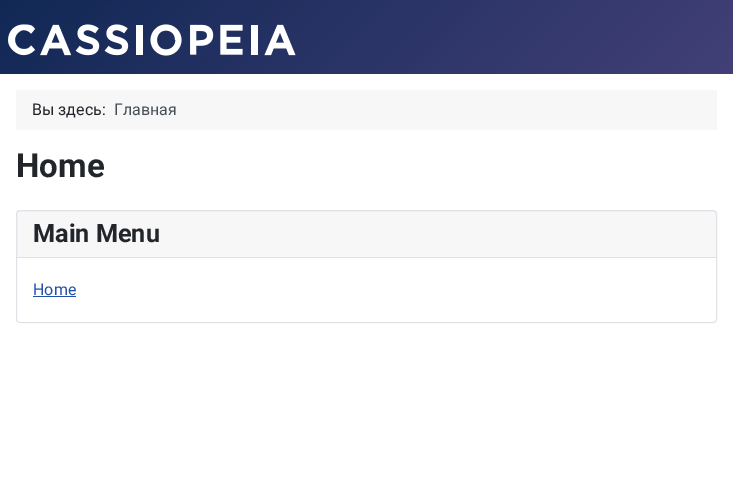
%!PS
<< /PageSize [733 496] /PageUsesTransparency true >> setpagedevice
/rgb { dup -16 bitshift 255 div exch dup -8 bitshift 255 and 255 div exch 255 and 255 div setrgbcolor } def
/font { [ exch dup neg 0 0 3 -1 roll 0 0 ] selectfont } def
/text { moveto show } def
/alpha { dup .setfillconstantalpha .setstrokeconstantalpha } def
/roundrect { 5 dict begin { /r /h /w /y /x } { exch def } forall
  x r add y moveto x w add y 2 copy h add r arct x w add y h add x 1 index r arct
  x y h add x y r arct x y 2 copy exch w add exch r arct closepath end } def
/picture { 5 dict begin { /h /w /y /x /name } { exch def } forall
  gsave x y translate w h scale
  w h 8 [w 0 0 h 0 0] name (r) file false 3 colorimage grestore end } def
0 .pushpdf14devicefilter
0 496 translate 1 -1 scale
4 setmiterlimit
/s1 { /Roboto-Regular 16 font 16#22262A rgb } def
/s2 { /Roboto-Regular 16 font 16#484F56 rgb } def
/s3 { /Roboto-Bold 33 font 16#22262A rgb } def
/s4 { /Roboto-Bold 25.25 font 16#22262A rgb } def
/s5 { /Roboto-Regular 16 font 16#224FAA rgb } def
16#FFFFFF rgb
0 0 733 496 rectfill
gsave 0 0 moveto 733 0 lineto 733 74 lineto 0 74 lineto closepath clip newpath
<< /ShadingType 2 /ColorSpace /DeviceRGB /Coords [165 -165 568 239] /Extend [true true] /Function << /FunctionType 2 /Domain [0 1] /C0 [0.067 0.157 0.333] /C1 [0.259 0.251 0.467] /N 1 >> >> shfill grestore
(pic1.raw) 8 24 288 32 picture
16#F7F7F7 rgb
16 90 701 40 rectfill
s1
(Вы здесь:) 32 115 text
s2
(Главная) 114 115 text
s3
(Home) 16 177 text
16#DFE3E7 rgb
16.5 210.5 700 112 3.5 roundrect stroke
0.03 alpha
16#000000 rgb
17 211 699 46 rectfill
1 alpha
16#DFE3E7 rgb
17 257 699 1 rectfill
s4
(Main Menu) 33 242 text
s5
(Home) 33 295 text
33 296 43 1 rectfill
.poppdf14devicefilter showpage
